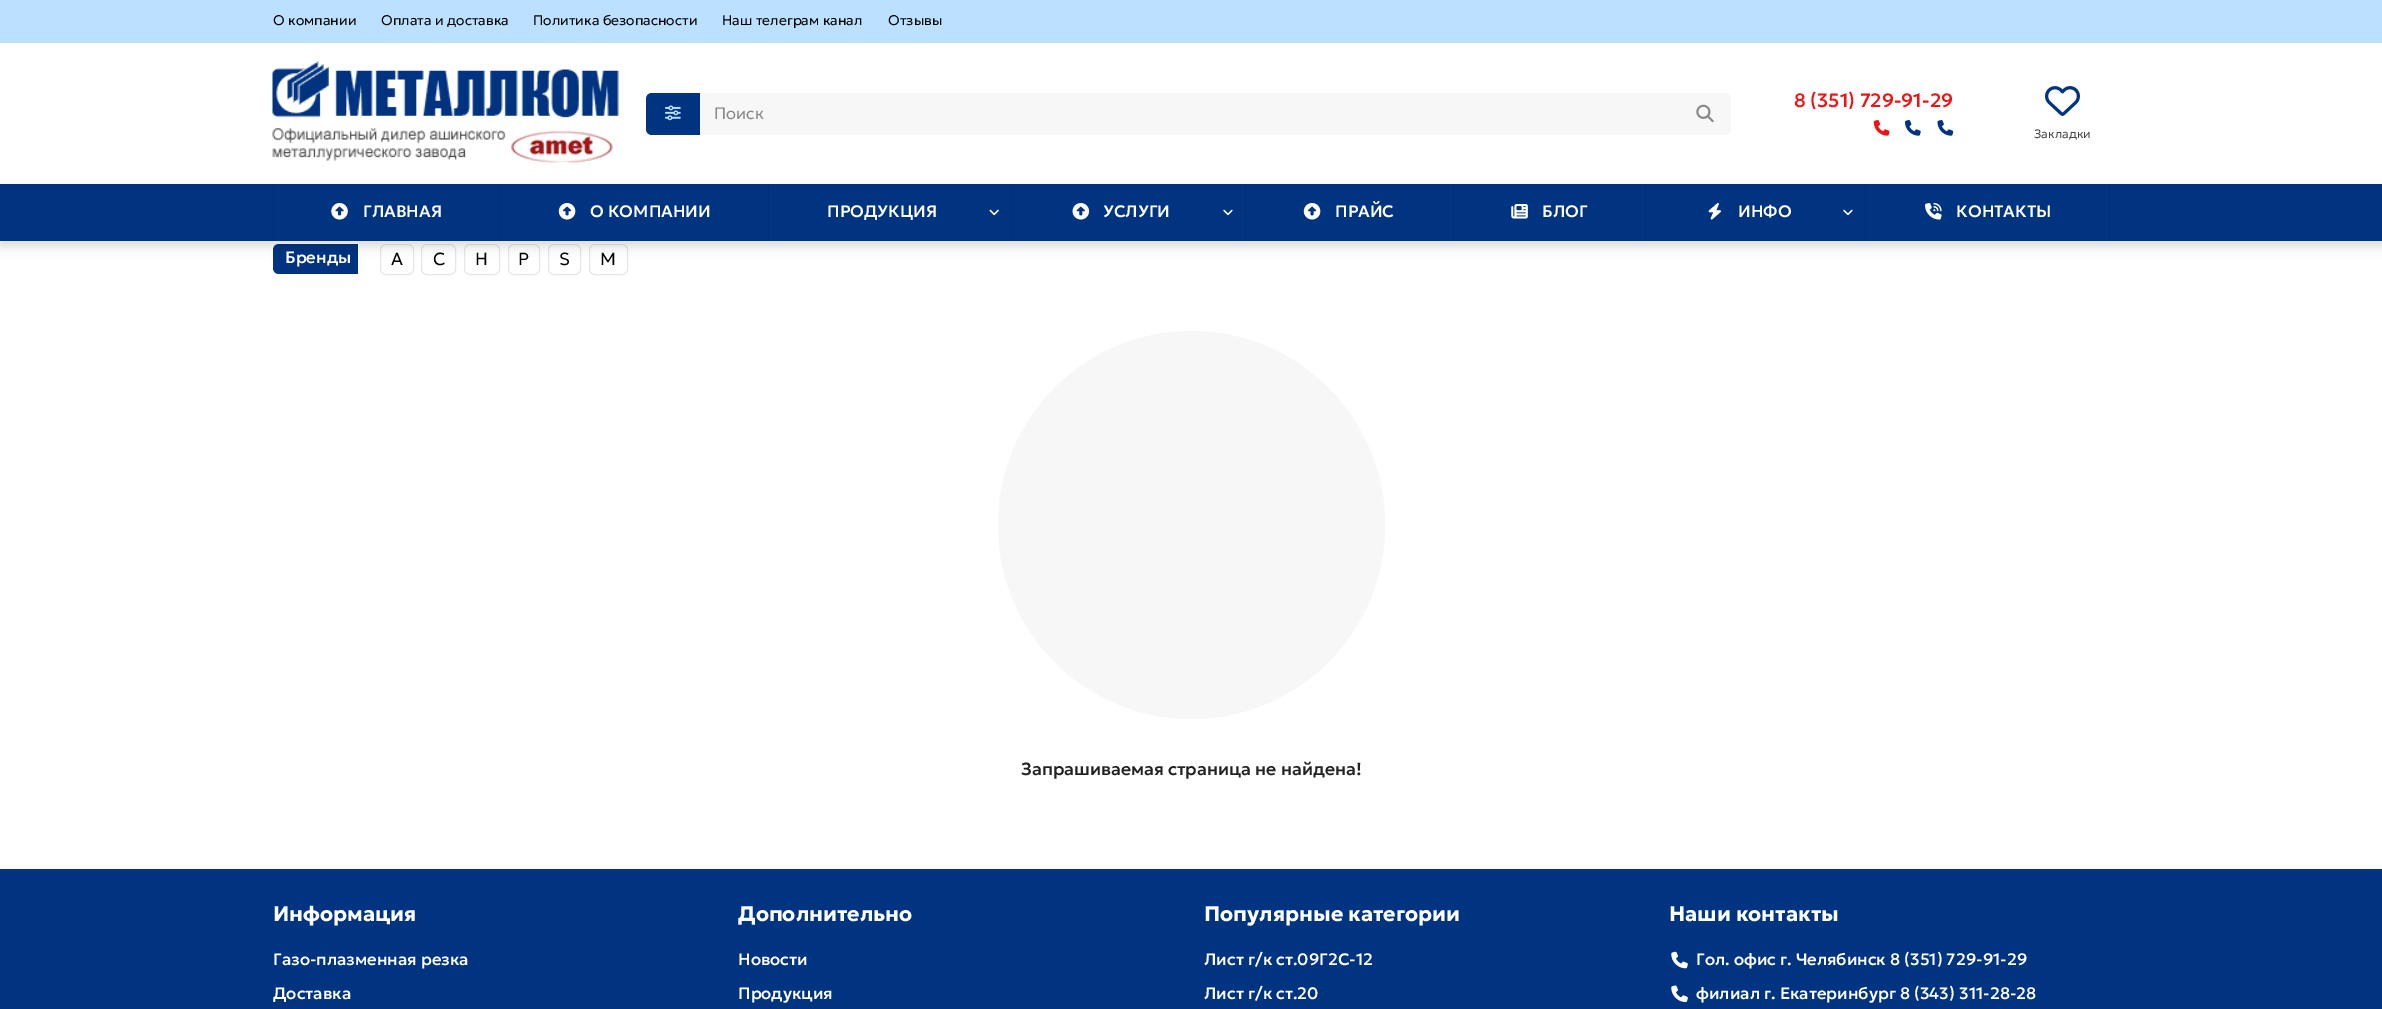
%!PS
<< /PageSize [2382 1009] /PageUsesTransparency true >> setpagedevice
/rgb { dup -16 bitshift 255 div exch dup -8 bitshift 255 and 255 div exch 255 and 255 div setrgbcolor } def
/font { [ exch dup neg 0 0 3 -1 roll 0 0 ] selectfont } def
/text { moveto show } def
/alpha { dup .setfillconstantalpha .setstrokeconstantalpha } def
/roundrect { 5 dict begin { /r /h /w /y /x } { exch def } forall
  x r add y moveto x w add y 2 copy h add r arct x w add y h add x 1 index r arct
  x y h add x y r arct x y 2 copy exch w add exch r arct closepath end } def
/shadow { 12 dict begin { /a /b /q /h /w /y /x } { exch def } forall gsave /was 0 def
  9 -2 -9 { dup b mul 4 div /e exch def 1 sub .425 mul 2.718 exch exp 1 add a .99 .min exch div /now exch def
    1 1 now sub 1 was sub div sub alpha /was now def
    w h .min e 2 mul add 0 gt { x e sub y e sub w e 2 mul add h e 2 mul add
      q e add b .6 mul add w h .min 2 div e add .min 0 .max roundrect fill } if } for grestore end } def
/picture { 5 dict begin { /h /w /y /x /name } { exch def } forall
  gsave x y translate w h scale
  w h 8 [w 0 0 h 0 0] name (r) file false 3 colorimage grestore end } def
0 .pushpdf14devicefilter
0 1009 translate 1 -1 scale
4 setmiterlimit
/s1 { /Geologica-Light 14 font 16#000000 rgb } def
/s2 { /Geologica-Medium 19.25 font 16#EC1414 rgb } def
/s3 { /Geologica-Light 16.6 font 16#888888 rgb } def
/s4 { /Geologica-Light 12.25 font 16#444444 rgb } def
/s5 { /Geologica-Medium 16.6 font 16#FFFFFF rgb } def
/s6 { /Geologica-Light 17.5 font 16#000000 rgb } def
/s7 { /Geologica-Medium 17.5 font 16#222222 rgb } def
/s8 { /Geologica-Bold 21 font 16#FFFFFF rgb } def
16#FFFFFF rgb
0 0 2382 1009 rectfill
16#003380 rgb
279 244 moveto 358 244 lineto 358 274 lineto 279 274 lineto 275.5 274 273 271.5 273 268 curveto 273 250 lineto 273 246.5 275.5 244 279 244 curveto closepath fill
16#E6E6E6 rgb
380.5 244.5 33 30 5.5 roundrect stroke
421.5 244.5 34 30 5.5 roundrect stroke
464.5 244.5 35 30 5.5 roundrect stroke
508.5 244.5 31 30 5.5 roundrect stroke
548.5 244.5 32 30 5.5 roundrect stroke
589.5 244.5 38 30 5.5 roundrect stroke
16#000000 rgb
0 5 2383 241 0 6 0.15 shadow
16#FFFFFF rgb
0 43 2382 141 rectfill
16#BCE0FF rgb
0 0 2382 43 rectfill
s1
(О компании) 273 25 text
(Оплата и доставка) 381 25 text
(Политика безопасности) 533 25 text
(Наш телеграм канал) 722 25 text
(Отзывы) 888 25 text
(pic1.raw) 272 60 347 104 picture
s2
(8 \(351\) 729-91-29) 1794 107 text
(pic2.raw) 1873 120 17 16 picture
(pic3.raw) 1905 120 16 16 picture
(pic4.raw) 1937 120 17 16 picture
16#003380 rgb
652 93 moveto 700 93 lineto 700 135 lineto 652 135 lineto 648.5 135 646 132.5 646 129 curveto 646 99 lineto 646 95.5 648.5 93 652 93 curveto closepath fill
(pic5.raw) 665 105 16 16 picture
16#F7F7F7 rgb
700 93 moveto 1725 93 lineto 1728.5 93 1731 95.5 1731 99 curveto 1731 129 lineto 1731 132.5 1728.5 135 1725 135 curveto 700 135 lineto closepath fill
s3
(Поиск) 714 119 text
(pic6.raw) 1696 104 18 19 picture
(pic7.raw) 2045 86 35 30 picture
s4
(Закладки) 2034 138 text
16#003380 rgb
0 184 2382 57 rectfill
16#002F76 rgb
273 184 1 57 rectfill
(pic8.raw) 331 203 17 17 picture
s5
(ГЛАВНАЯ) 363 217 text
16#002F76 rgb
499 184 1 57 rectfill
(pic9.raw) 558 203 18 17 picture
s5
(О КОМПАНИИ) 590 217 text
16#002F76 rgb
768 184 1 57 rectfill
s5
(ПРОДУКЦИЯ) 827 217 text
(pic10.raw) 989 209 10 7 picture
16#002F76 rgb
1011 184 1 57 rectfill
(pic11.raw) 1072 203 18 17 picture
s5
(УСЛУГИ) 1103 217 text
(pic12.raw) 1223 209 10 7 picture
16#002F76 rgb
1245 184 1 57 rectfill
(pic9.raw) 1303 203 18 17 picture
s5
(ПРАЙС) 1335 217 text
16#002F76 rgb
1453 184 1 57 rectfill
(pic13.raw) 1511 204 17 15 picture
s5
(БЛОГ) 1542 217 text
16#002F76 rgb
1645 184 1 57 rectfill
(pic14.raw) 1708 203 13 17 picture
s5
(ИНФО) 1738 217 text
(pic12.raw) 1843 209 10 7 picture
16#002F76 rgb
1865 184 1 57 rectfill
2109 184 1 57 rectfill
(pic15.raw) 1925 203 17 17 picture
s5
(КОНТАКТЫ) 1956 217 text
(Бренды) 285 263 text
s6
(A) 391 265 text
(C) 433 265 text
(H) 475 265 text
(P) 518 265 text
(S) 559 265 text
(М) 600 265 text
16#F7F7F7 rgb
998 331 387 388 193.5 roundrect fill
s7
(Запрашиваемая страница не найдена!) 1021 775 text
16#003380 rgb
0 869 2382 140 rectfill
s8
(Информация) 273 921 text
s5
(Газо-плазменная резка) 273 965 text
(Доставка) 273 999 text
s8
(Дополнительно) 738 921 text
s5
(Новости) 738 965 text
(Продукция) 738 999 text
s8
(Популярные категории) 1204 921 text
s5
(Лист г/к ст.09Г2С-12) 1204 965 text
(Лист г/к ст.20) 1204 999 text
s8
(Наши контакты) 1669 921 text
(pic16.raw) 1671 951 17 18 picture
s5
(Гол. офис г. Челябинск 8 \(351\) 729-91-29) 1696 965 text
(pic17.raw) 1671 985 17 18 picture
(филиал г. Екатеринбург 8 \(343\) 311-28-28) 1696 999 text
.poppdf14devicefilter showpage
